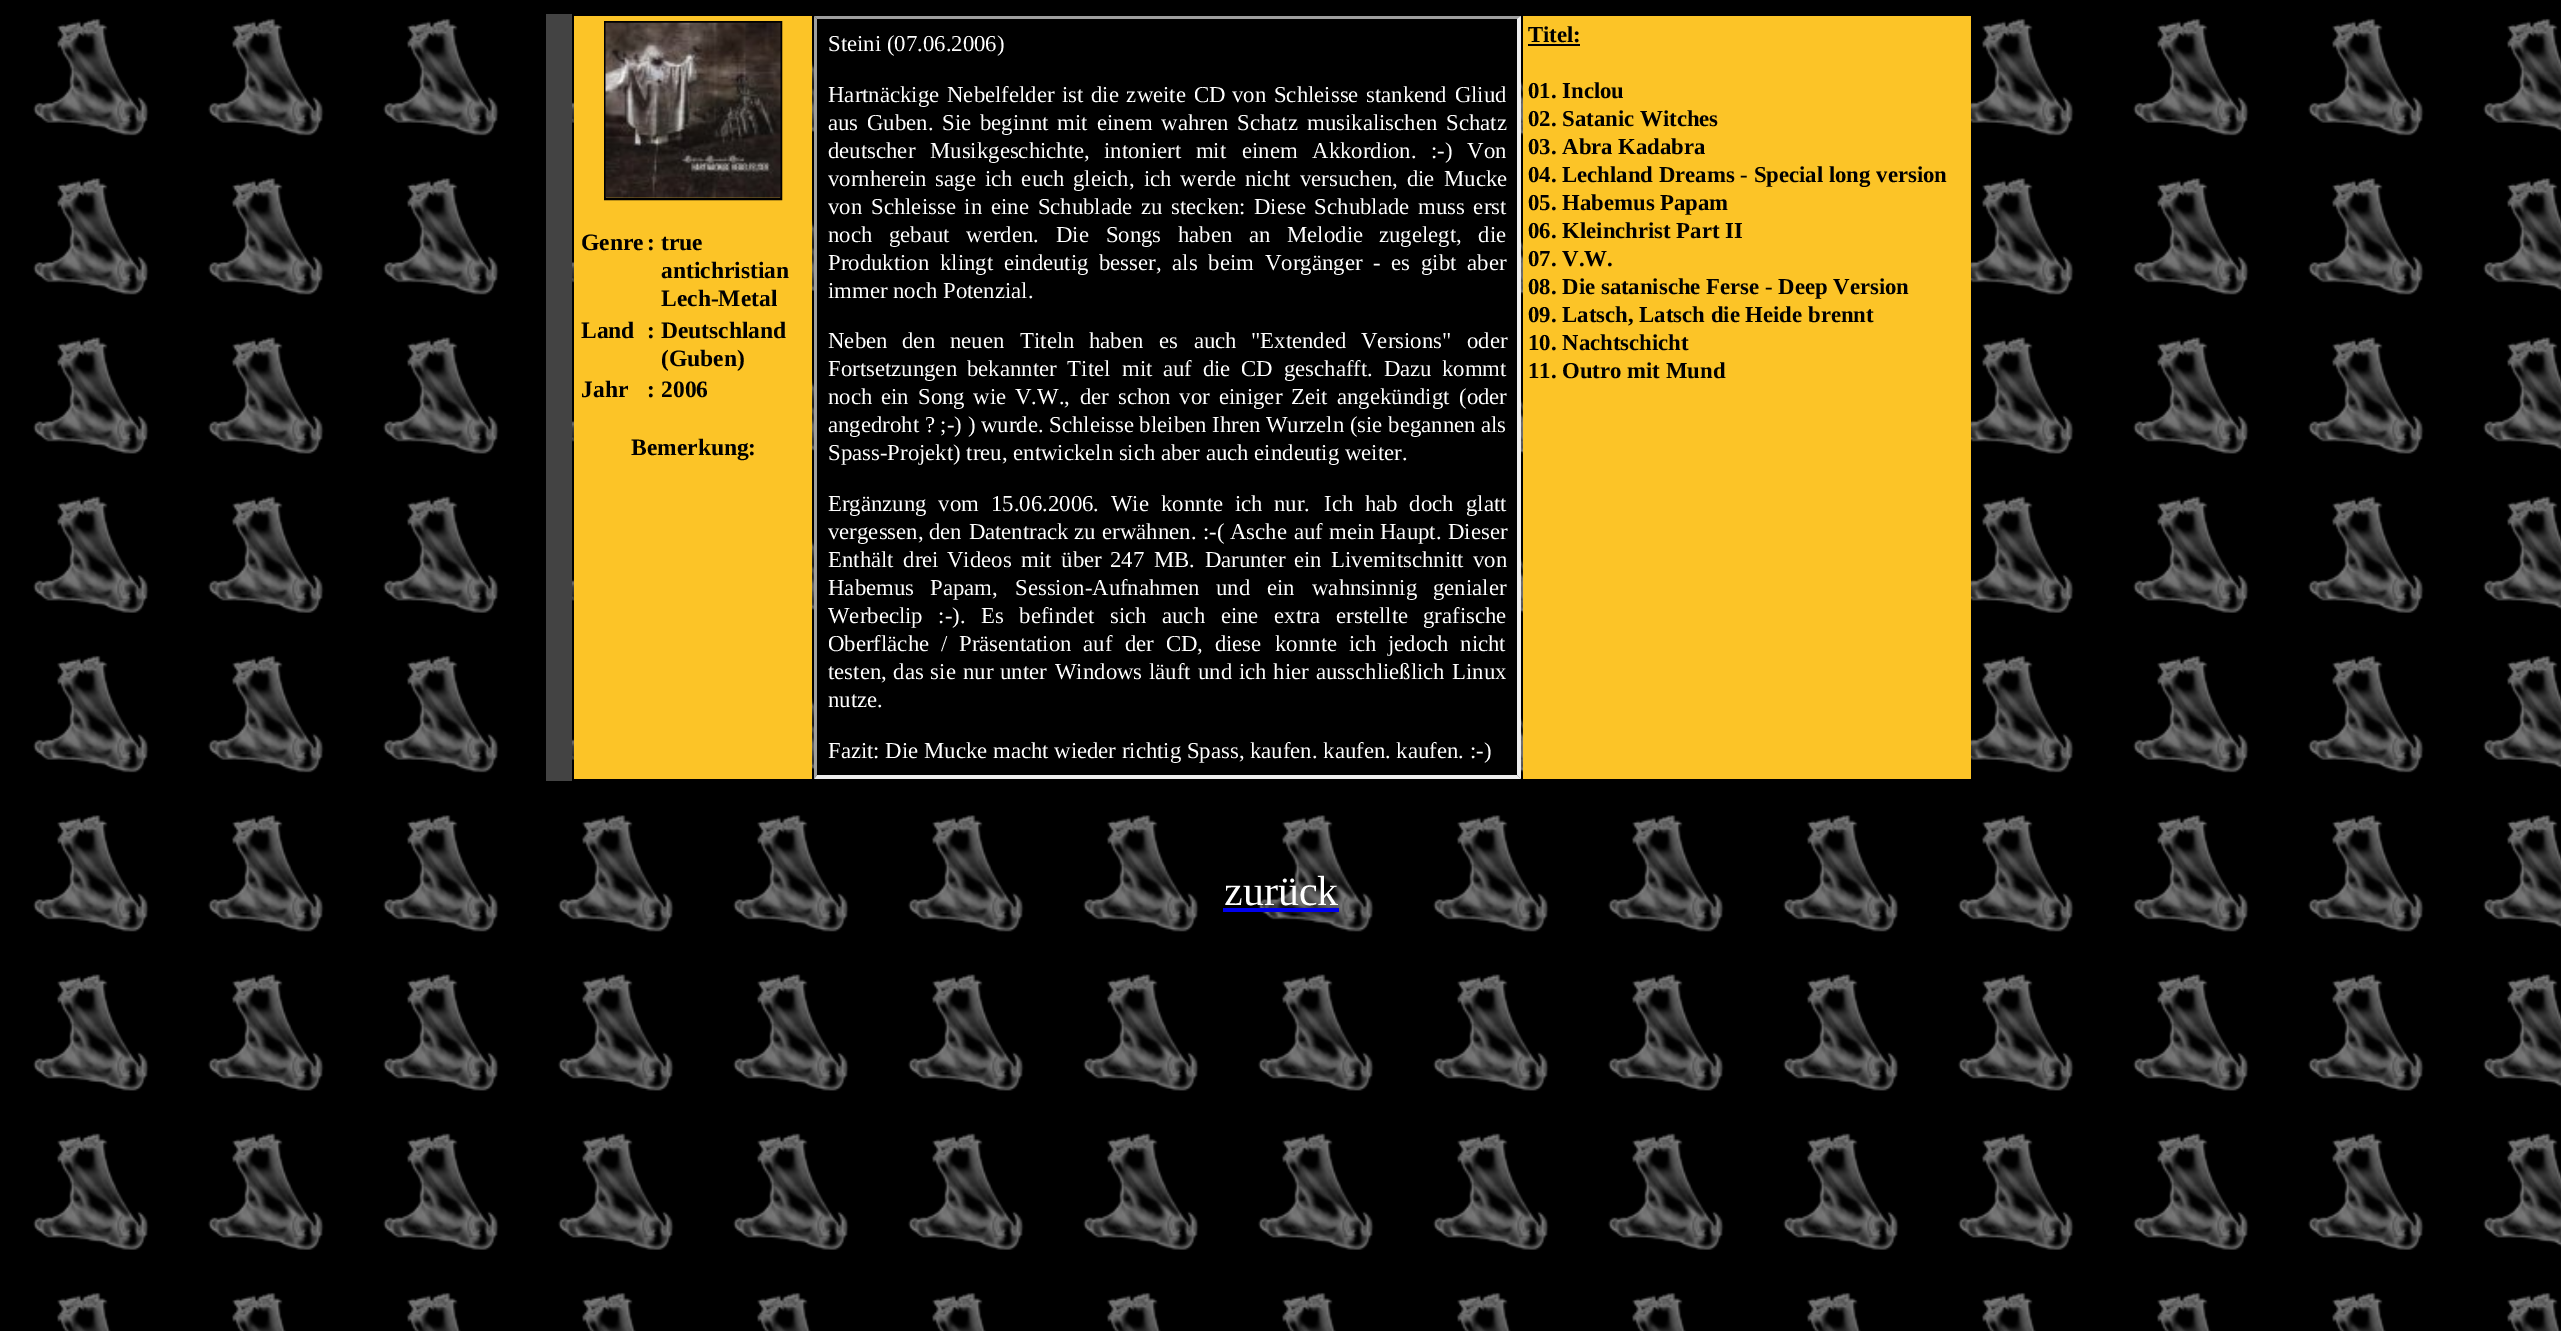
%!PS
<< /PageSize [2561 1331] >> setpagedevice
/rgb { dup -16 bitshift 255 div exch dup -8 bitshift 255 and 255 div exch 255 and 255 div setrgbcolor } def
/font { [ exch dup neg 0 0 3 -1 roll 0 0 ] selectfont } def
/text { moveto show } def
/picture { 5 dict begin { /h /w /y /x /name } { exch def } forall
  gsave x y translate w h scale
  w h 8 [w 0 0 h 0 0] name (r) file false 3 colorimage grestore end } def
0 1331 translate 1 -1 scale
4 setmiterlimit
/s1 { /LiberationSerif-Bold 23.5 font 16#000000 rgb } def
/s2 { /LiberationSerif-Regular 22.75 font 16#FFFFFF rgb } def
/s3 { /LiberationSerif-Bold 22.75 font 16#000000 rgb } def
/s4 { /LiberationSerif-Regular 42 font 16#FFFFFF rgb } def
16#000000 rgb
0 0 2561 1331 rectfill
(pic1.raw) 33 18 2528 1313 picture
16#434343 rgb
546 14 26 767 rectfill
16#FCC427 rgb
574 16 238 763 rectfill
16#000000 rgb
2 setlinewidth
605 22 176 177 rectstroke
(pic2.raw) 605 22 176 176 picture
s1
(Genre) 581 250 text
(:) 647 250 text
(true) 661 250 text
(antichristian) 661 278 text
(Lech-Metal) 661 306 text
(Land) 581 338 text
(:) 647 338 text
(Deutschland) 661 338 text
(\(Guben\)) 661 366 text
(Jahr) 581 397 text
(:) 647 397 text
(2006) 661 397 text
(Bemerkung:) 631 455 text
814 18 707 755 rectfill
16#9F9F9F rgb
814 16 moveto 1521 16 lineto 1517 19 lineto 817 19 lineto closepath fill
16#EEEEEE rgb
1521 16 moveto 1521 779 lineto 1517 775 lineto 1517 19 lineto closepath fill
1521 779 moveto 814 779 lineto 817 775 lineto 1517 775 lineto closepath fill
16#9F9F9F rgb
814 779 moveto 814 16 lineto 817 19 lineto 817 775 lineto closepath fill
s2
(Steini \(07.06.2006\)) 828 51 text
(Hartnäckige) 828 102 text
947 102 moveto 2 0 32 (Nebelfelder ist) widthshow
1091 102 moveto 2 0 32 (die zweite CD) widthshow
1232 102 moveto 2 0 32 (von Schleisse) widthshow
1366 102 moveto 2 0 32 (stankend Gliud) widthshow
828 130 moveto 3 0 32 (aus Guben. Sie) widthshow
980 130 moveto 3 0 32 (beginnt mit) widthshow
1097 130 moveto 3 0 32 (einem wahren) widthshow
(Schatz) 1237 130 text
(musikalischen) 1307 130 text
(Schatz) 1446 130 text
(deutscher) 828 158 text
(Musikgeschichte,) 930 158 text
1104 158 moveto 9 0 32 (intoniert mit) widthshow
1242 158 moveto 9 0 32 (einem Akkordion.) widthshow
1431 158 moveto 9 0 32 (:-\) Von) widthshow
828 186 moveto 3 0 32 (vornherein sage) widthshow
985 186 moveto 3 0 32 (ich euch gleich,) widthshow
1144 186 moveto 3 0 32 (ich werde nicht) widthshow
1300 186 moveto 3 0 32 (versuchen, die) widthshow
(Mucke) 1444 186 text
(von) 828 214 text
871 214 moveto 3 0 32 (Schleisse in) widthshow
991 214 moveto 3 0 32 (eine Schublade) widthshow
1141 214 moveto 3 0 32 (zu stecken:) widthshow
1254 214 moveto 3 0 32 (Diese Schublade) widthshow
1418 214 moveto 3 0 32 (muss erst) widthshow
(noch) 828 242 text
889 242 moveto 11 0 32 (gebaut werden.) widthshow
1056 242 moveto 11 0 32 (Die Songs haben) widthshow
1249 242 moveto 11 0 32 (an Melodie) widthshow
1379 242 moveto 11 0 32 (zugelegt, die) widthshow
(Produktion) 828 270 text
940 270 moveto 5 0 32 (klingt eindeutig) widthshow
1099 270 moveto 5 0 32 (besser, als beim) widthshow
1265 270 moveto 5 0 32 (Vorgänger - es) widthshow
1421 270 moveto 5 0 32 (gibt aber) widthshow
(immer noch Potenzial.) 828 298 text
828 348 moveto 9 0 32 (Neben den) widthshow
950 348 moveto 10 0 32 (neuen Titeln) widthshow
1089 348 moveto 10 0 32 (haben es auch) widthshow
("Extended) 1251 348 text
1361 348 moveto 10 0 32 (Versions" oder) widthshow
(Fortsetzungen) 828 376 text
967 376 moveto 5 0 32 (bekannter Titel) widthshow
1122 376 moveto 5 0 32 (mit auf die CD) widthshow
1284 376 moveto 5 0 32 (geschafft. Dazu) widthshow
(kommt) 1442 376 text
828 404 moveto 3 0 32 (noch ein) widthshow
918 404 moveto 3 0 32 (Song wie V.W.,) widthshow
1080 404 moveto 3 0 32 (der schon vor) widthshow
1219 404 moveto 3 0 32 (einiger Zeit) widthshow
(angekündigt) 1337 404 text
(\(oder) 1459 404 text
(angedroht ? ;-\) \) wurde. Schleisse bleiben Ihren Wurzeln \(sie begannen als) 828 432 text
(Spass-Projekt\) treu, entwickeln sich aber auch eindeutig weiter.) 828 460 text
828 511 moveto 6 0 32 (Ergänzung vom) widthshow
991 511 moveto 6 0 32 (15.06.2006. Wie) widthshow
1161 511 moveto 6 0 32 (konnte ich nur.) widthshow
1324 511 moveto 6 0 32 (Ich hab doch) widthshow
(glatt) 1466 511 text
(vergessen,) 828 539 text
929 539 moveto 1 0 32 (den Datentrack) widthshow
1074 539 moveto 1 0 32 (zu erwähnen. :-\() widthshow
1230 539 moveto 1 0 32 (Asche auf mein) widthshow
1380 539 moveto 1 0 32 (Haupt. Dieser) widthshow
828 567 moveto 4 0 32 (Enthält drei) widthshow
947 567 moveto 4 0 32 (Videos mit über) widthshow
1110 567 moveto 4 0 32 (247 MB. Darunter) widthshow
(ein) 1294 567 text
(Livemitschnitt) 1331 567 text
(von) 1473 567 text
(Habemus) 828 595 text
(Papam,) 930 595 text
(Session-Aufnahmen) 1015 595 text
1216 595 moveto 11 0 32 (und ein) widthshow
(wahnsinnig) 1312 595 text
(genialer) 1433 595 text
828 623 moveto 10 0 32 (Werbeclip :-\).) widthshow
981 623 moveto 10 0 32 (Es befindet sich) widthshow
1162 623 moveto 10 0 32 (auch eine extra) widthshow
(erstellte) 1336 623 text
(grafische) 1423 623 text
828 651 moveto 6 0 32 (Oberfläche /) widthshow
959 651 moveto 6 0 32 (Präsentation auf) widthshow
1125 651 moveto 6 0 32 (der CD, diese) widthshow
1275 651 moveto 6 0 32 (konnte ich) widthshow
1388 651 moveto 6 0 32 (jedoch nicht) widthshow
828 679 moveto 1 0 32 (testen, das sie) widthshow
963 679 moveto 1 0 32 (nur unter) widthshow
1055 679 moveto 1 0 32 (Windows läuft) widthshow
1198 679 moveto 1 0 32 (und ich hier) widthshow
(ausschließlich) 1316 679 text
(Linux) 1452 679 text
(nutze.) 828 707 text
(Fazit: Die Mucke macht wieder richtig Spass, kaufen. kaufen. kaufen. :-\)) 828 758 text
16#FCC427 rgb
1523 16 448 763 rectfill
s3
(Titel:) 1528 42 text
1528 44 52 2 rectfill
(01. Inclou) 1528 98 text
(02. Satanic Witches) 1528 126 text
(03. Abra Kadabra) 1528 154 text
(04. Lechland Dreams - Special long version) 1528 182 text
(05. Habemus Papam) 1528 210 text
(06. Kleinchrist Part II) 1528 238 text
(07. V.W.) 1528 266 text
(08. Die satanische Ferse - Deep Version) 1528 294 text
(09. Latsch, Latsch die Heide brennt) 1528 322 text
(10. Nachtschicht) 1528 350 text
(11. Outro mit Mund) 1528 378 text
s4
(zurück) 1224 905 text
16#0000EE rgb
1223 908 116 4 rectfill
showpage
